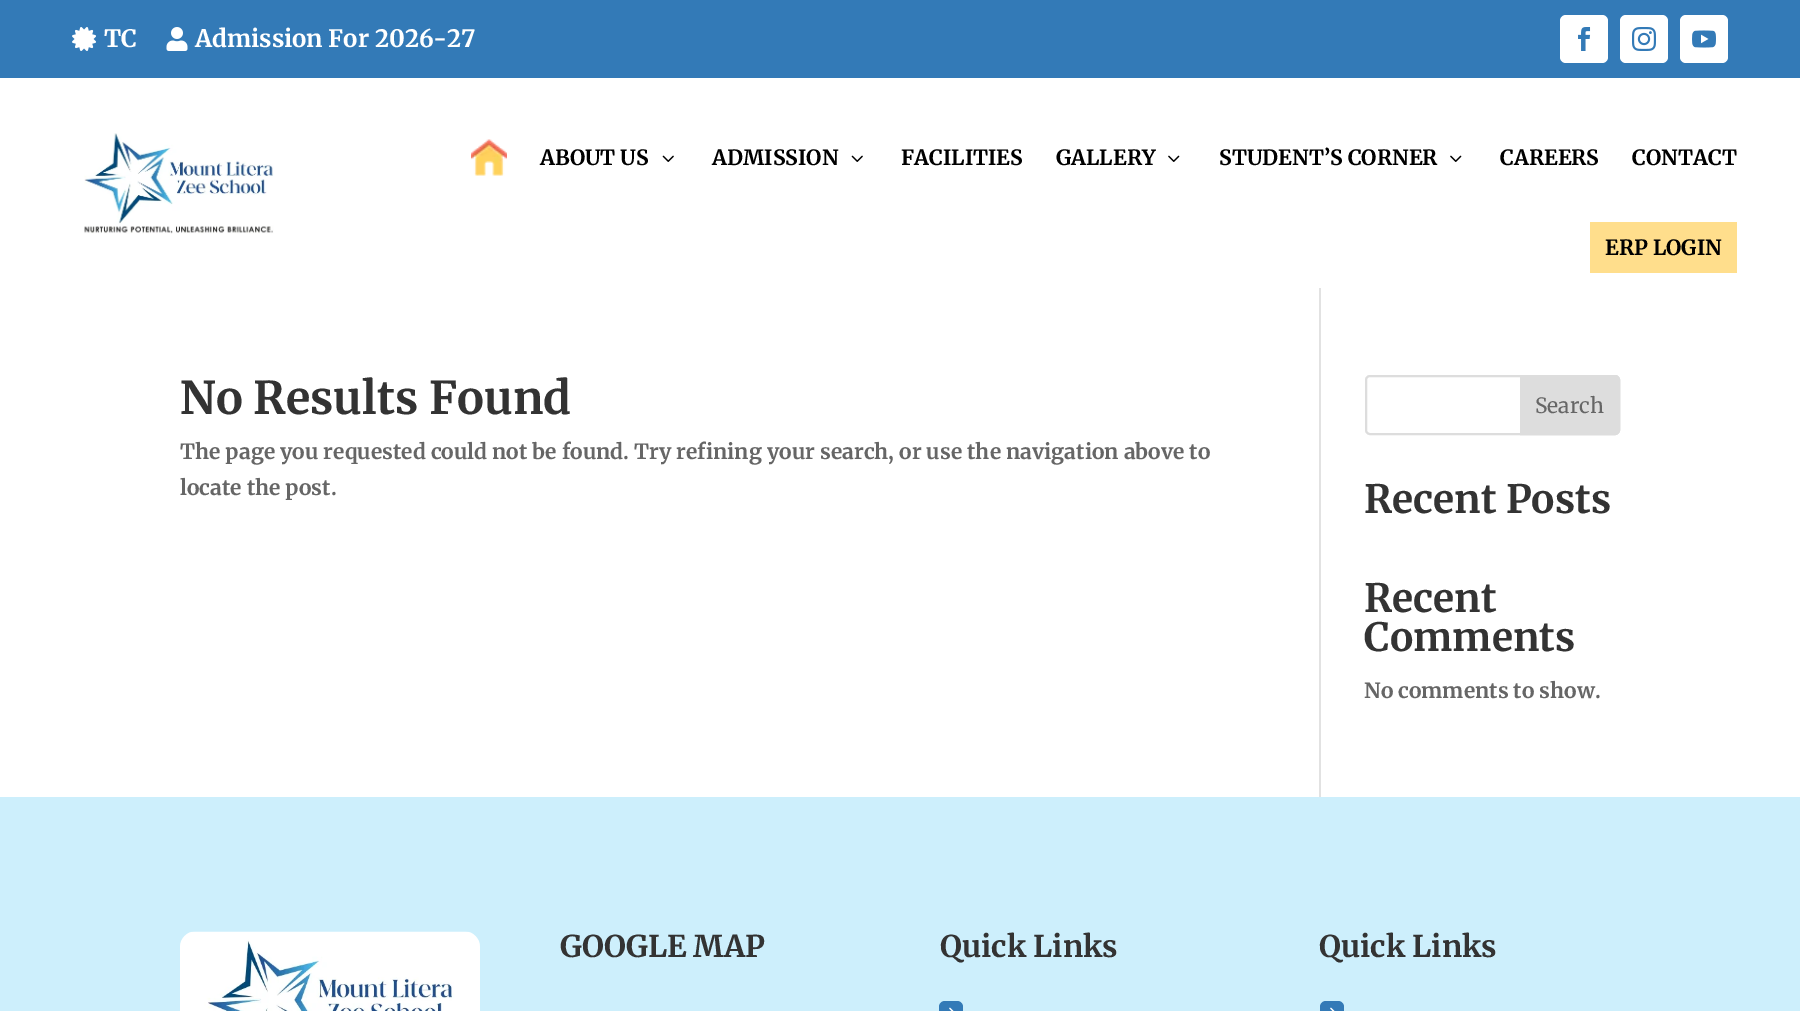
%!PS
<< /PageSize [1800 1011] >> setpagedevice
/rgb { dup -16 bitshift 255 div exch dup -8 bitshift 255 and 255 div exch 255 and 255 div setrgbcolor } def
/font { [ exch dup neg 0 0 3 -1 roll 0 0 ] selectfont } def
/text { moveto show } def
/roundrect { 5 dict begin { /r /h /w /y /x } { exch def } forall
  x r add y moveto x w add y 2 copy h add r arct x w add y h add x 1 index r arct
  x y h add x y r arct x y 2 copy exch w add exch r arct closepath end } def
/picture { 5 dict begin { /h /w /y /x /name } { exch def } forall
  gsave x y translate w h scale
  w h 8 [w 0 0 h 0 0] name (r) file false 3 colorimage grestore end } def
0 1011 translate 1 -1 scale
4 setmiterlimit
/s1 { /Merriweather-Bold 24 font 16#FFFFFF rgb } def
/s2 { /Merriweather-Bold 21 font 16#000000 rgb } def
/s3 { /Merriweather-Bold 45 font 16#333333 rgb } def
/s4 { /Merriweather-Bold 21 font 16#666666 rgb } def
/s5 { /Merriweather-Regular 21 font 16#666666 rgb } def
/s6 { /Merriweather-Bold 39 font 16#333333 rgb } def
/s7 { /Merriweather-Bold 30 font 16#333333 rgb } def
16#FFFFFF rgb
0 0 1800 1011 rectfill
16#337AB7 rgb
0 0 1800 78 rectfill
(pic1.raw) 72 27 24 24 picture
s1
(TC) 104 47 text
(pic2.raw) 166 27 22 24 picture
(Admission For 2026-27) 195 47 text
1560 15 48 48 6 roundrect fill
(pic3.raw) 1578 27 13 24 picture
1620 15 48 48 6 roundrect fill
(pic4.raw) 1632 27 24 24 picture
1680 15 48 48 6 roundrect fill
(pic5.raw) 1692 30 24 18 picture
(pic6.raw) 84 133 190 101 picture
(pic7.raw) 471 139 36 37 picture
s2
(ABOUT US) 540 165 text
(pic8.raw) 662 155 12 7 picture
(ADMISSION) 712 165 text
(pic8.raw) 851 155 12 7 picture
(FACILITIES) 901 165 text
(GALLERY) 1056 165 text
(pic9.raw) 1168 155 12 7 picture
(STUDENT’S CORNER) 1219 165 text
(pic9.raw) 1450 155 12 7 picture
(CAREERS) 1500 165 text
(CONTACT) 1632 165 text
16#FFDE8C rgb
1590 222 147 51 rectfill
s2
(ERP LOGIN) 1605 255 text
16#E2E2E2 rgb
1319 288 2 509 rectfill
s3
(No Results Found) 180 414 text
s4
(The page you requested could not be found. Try refining your search, or use the navigation above to) 180 459 text
(locate the post.) 180 495 text
16#DDDDDD rgb
2 setlinewidth
1366 376 253 58 4 roundrect stroke
1521 376 moveto 1615 376 lineto 1617 376 1619 378 1619 380 curveto 1619 430 lineto 1619 432 1617 434 1615 434 curveto 1521 434 lineto closepath gsave fill grestore
stroke
s5
(Search) 1535 413 text
s6
(Recent Posts) 1364 513 text
(Recent) 1364 612 text
(Comments) 1364 651 text
s4
(No comments to show.) 1364 698 text
16#CDEFFC rgb
0 797 1800 214 rectfill
(pic10.raw) 180 931 300 80 picture
s7
(GOOGLE MAP) 560 957 text
(Quick Links) 940 957 text
16#337AB7 rgb
939 1001 24 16 6 roundrect fill
(pic11.raw) 949 1007 5 4 picture
s7
(Quick Links) 1319 957 text
16#337AB7 rgb
1320 1001 24 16 6 roundrect fill
(pic11.raw) 1330 1007 5 4 picture
showpage
